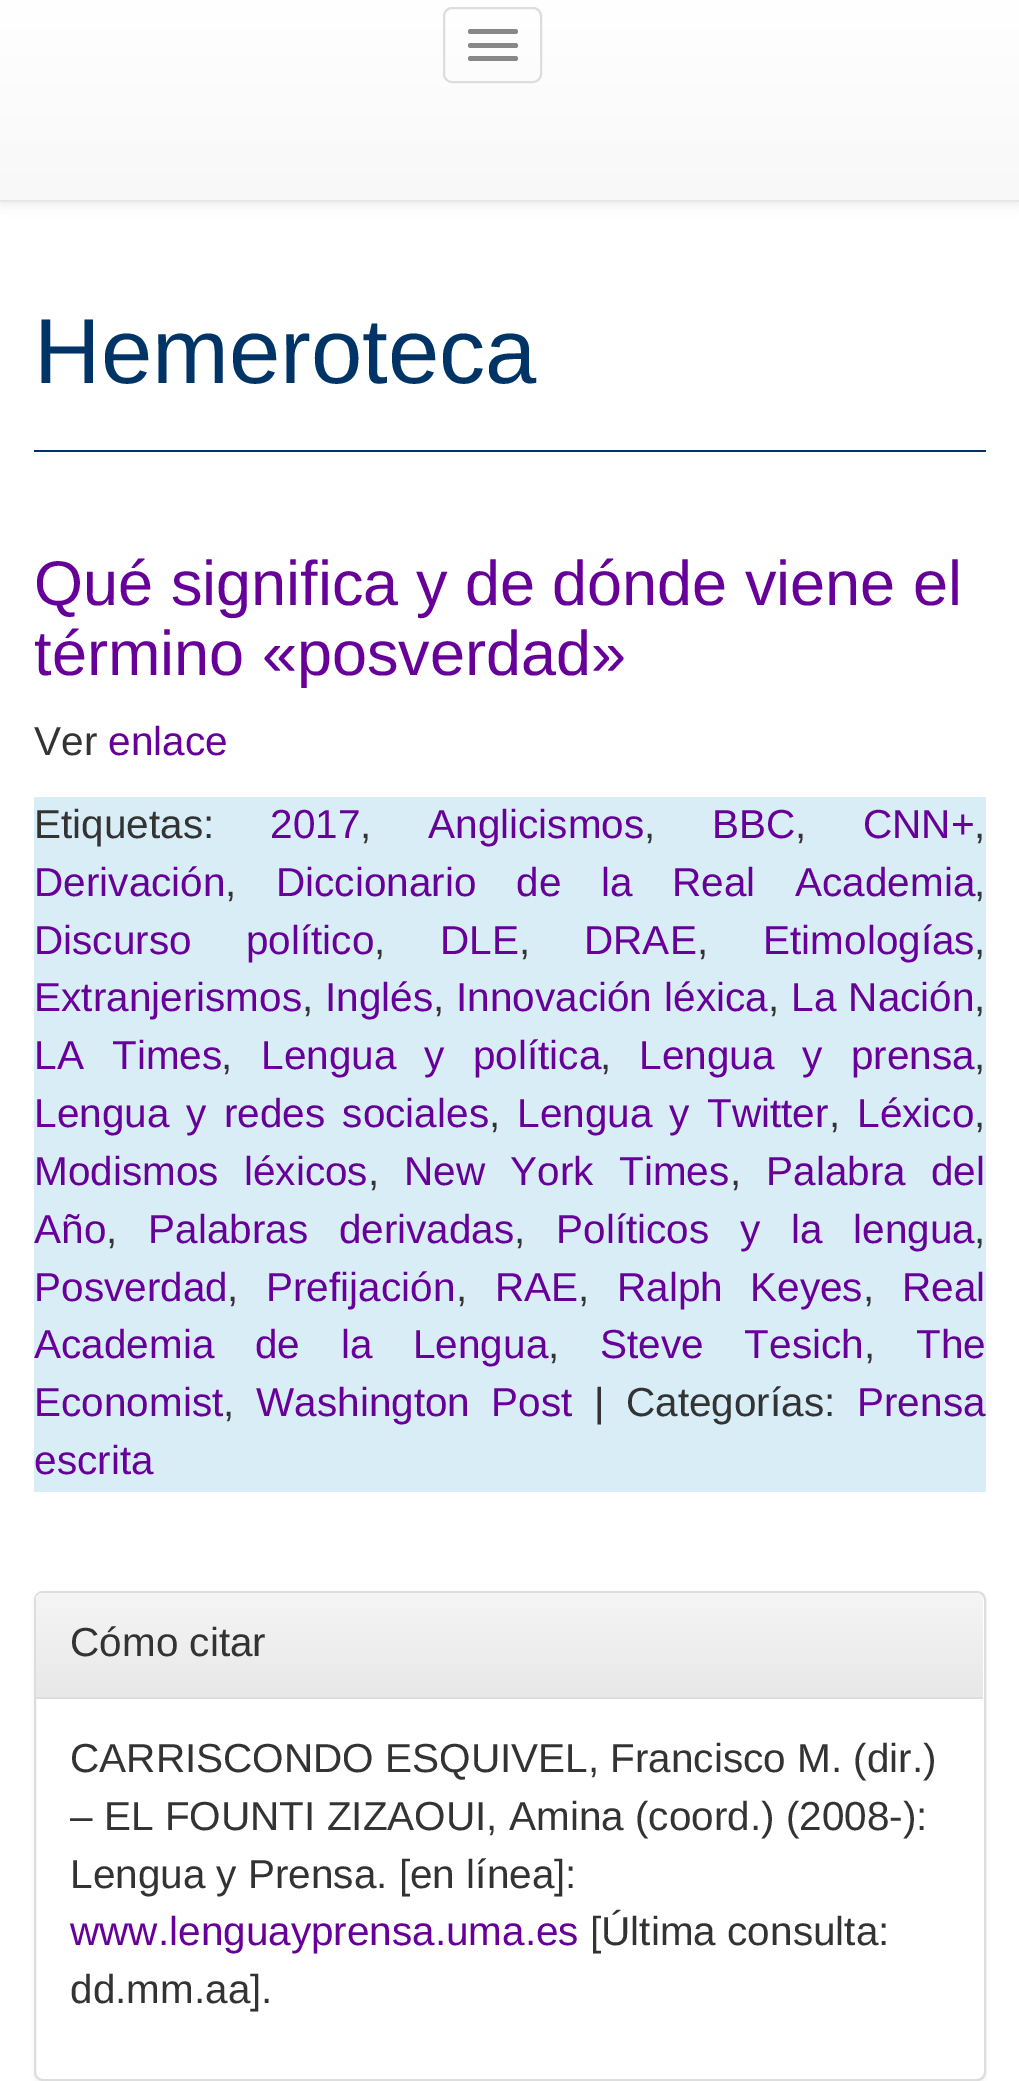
%!PS
<< /PageSize [1019 2081] /PageUsesTransparency true >> setpagedevice
/rgb { dup -16 bitshift 255 div exch dup -8 bitshift 255 and 255 div exch 255 and 255 div setrgbcolor } def
/font { [ exch dup neg 0 0 3 -1 roll 0 0 ] selectfont } def
/text { moveto show } def
/alpha { dup .setfillconstantalpha .setstrokeconstantalpha } def
/roundrect { 5 dict begin { /r /h /w /y /x } { exch def } forall
  x r add y moveto x w add y 2 copy h add r arct x w add y h add x 1 index r arct
  x y h add x y r arct x y 2 copy exch w add exch r arct closepath end } def
/shadow { 12 dict begin { /a /b /q /h /w /y /x } { exch def } forall gsave /was 0 def
  9 -2 -9 { dup b mul 4 div /e exch def 1 sub .425 mul 2.718 exch exp 1 add a .99 .min exch div /now exch def
    1 1 now sub 1 was sub div sub alpha /was now def
    w h .min e 2 mul add 0 gt { x e sub y e sub w e 2 mul add h e 2 mul add
      q e add b .6 mul add w h .min 2 div e add .min 0 .max roundrect fill } if } for grestore end } def
0 .pushpdf14devicefilter
0 2081 translate 1 -1 scale
4 setmiterlimit
/s1 { /LiberationSans-Regular 92.25 font 16#003466 rgb } def
/s2 { /LiberationSans-Regular 63 font 16#670099 rgb } def
/s3 { /LiberationSans-Regular 40.5 font 16#333333 rgb } def
/s4 { /LiberationSans-Regular 40.5 font 16#670099 rgb } def
16#FFFFFF rgb
0 0 1019 2081 rectfill
16#000000 rgb
0 2 1019 203 0 5.5 0.07 shadow
gsave 0 0 moveto 1019 0 lineto 1019 200 lineto 0 200 lineto closepath clip newpath
<< /ShadingType 2 /ColorSpace /DeviceRGB /Coords [510 0 510 200] /Extend [true true] /Function << /FunctionType 2 /Domain [0 1] /C0 [1 1 1] /C1 [0.973 0.973 0.973] /N 1 >> >> shfill grestore
16#E7E7E7 rgb
0 200 1019 2 rectfill
16#DDDDDD rgb
2 setlinewidth
444 8 97 74 8 roundrect stroke
16#888888 rgb
468 29 50 5 2.5 roundrect fill
468 43 50 5 2.5 roundrect fill
468 56 50 5 2.5 roundrect fill
16#003466 rgb
34 450 952 2 rectfill
s1
(Hemeroteca) 34 383 text
s2
(Qué significa y de dónde viene el) 34 605 text
(término «posverdad») 34 675 text
s3
(Ver) 34 755 text
s4
(enlace) 108 755 text
16#D9EDF7 rgb
34 797 952 695 rectfill
s3
(Etiquetas:) 34 838 text
s4
(2017) 270 838 text
s3
(,) 360 838 text
s4
(Anglicismos) 428 838 text
s3
(,) 644 838 text
s4
(BBC) 712 838 text
s3
(,) 795 838 text
s4
(CNN+) 863 838 text
s3
(,) 974 838 text
s4
(Derivación) 34 896 text
s3
(,) 225 896 text
16#670099 rgb
276 896 moveto 28.5 0 32 (Diccionario de la Real Academia) widthshow
s3
(,) 974 896 text
16#670099 rgb
34 954 moveto 43 0 32 (Discurso político) widthshow
s3
(,) 374 954 text
s4
(DLE) 440 954 text
s3
(,) 519 954 text
s4
(DRAE) 584 954 text
s3
(,) 697 954 text
s4
(Etimologías) 763 954 text
s3
(,) 974 954 text
s4
(Extranjerismos) 34 1011 text
s3
(,) 302 1011 text
s4
(Inglés) 325 1011 text
s3
(,) 433 1011 text
16#670099 rgb
456 1011 moveto 1 0 32 (Innovación léxica) widthshow
s3
(,) 768 1011 text
16#670099 rgb
791 1011 moveto 1 0 32 (La Nación) widthshow
s3
(,) 974 1011 text
16#670099 rgb
34 1069 moveto 17 0 32 (LA Times) widthshow
s3
(,) 221 1069 text
16#670099 rgb
261 1069 moveto 17 0 32 (Lengua y política) widthshow
s3
(,) 600 1069 text
16#670099 rgb
639 1069 moveto 17 0 32 (Lengua y prensa) widthshow
s3
(,) 974 1069 text
16#670099 rgb
34 1127 moveto 6 0 32 (Lengua y redes sociales) widthshow
s3
(,) 489 1127 text
16#670099 rgb
517 1127 moveto 6 0 32 (Lengua y Twitter) widthshow
s3
(,) 829 1127 text
s4
(Léxico) 857 1127 text
s3
(,) 974 1127 text
16#670099 rgb
34 1185 moveto 14 0 32 (Modismos léxicos) widthshow
s3
(,) 368 1185 text
16#670099 rgb
404 1185 moveto 14 0 32 (New York Times) widthshow
s3
(,) 730 1185 text
16#670099 rgb
766 1185 moveto 14 0 32 (Palabra del) widthshow
(Año) 34 1243 text
s3
(,) 106 1243 text
16#670099 rgb
148 1243 moveto 19.5 0 32 (Palabras derivadas) widthshow
s3
(,) 514 1243 text
16#670099 rgb
556 1243 moveto 19.5 0 32 (Políticos y la lengua) widthshow
s3
(,) 974 1243 text
s4
(Posverdad) 34 1301 text
s3
(,) 227 1301 text
s4
(Prefijación) 266 1301 text
s3
(,) 456 1301 text
s4
(RAE) 495 1301 text
s3
(,) 578 1301 text
16#670099 rgb
617 1301 moveto 16 0 32 (Ralph Keyes) widthshow
s3
(,) 863 1301 text
s4
(Real) 902 1301 text
34 1358 moveto 29.5 0 32 (Academia de la Lengua) widthshow
s3
(,) 548 1358 text
16#670099 rgb
600 1358 moveto 29.5 0 32 (Steve Tesich) widthshow
s3
(,) 864 1358 text
s4
(The) 916 1358 text
(Economist) 34 1416 text
s3
(,) 223 1416 text
16#670099 rgb
256 1416 moveto 10 0 32 (Washington Post) widthshow
16#333333 rgb
594 1416 moveto 10 0 32 (| Categorías:) widthshow
s4
(Prensa) 857 1416 text
(escrita) 34 1474 text
16#000000 rgb
34 1593 952 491 9 2 0.05 shadow
16#FFFFFF rgb
35 1592 950 488 8 roundrect gsave fill grestore
16#DDDDDD rgb
stroke
gsave 43 1593 moveto 976 1593 lineto 980 1593 983 1596 983 1600 curveto 983 1697 lineto 36 1697 lineto 36 1600 lineto 36 1596 39 1593 43 1593 curveto closepath clip newpath
<< /ShadingType 2 /ColorSpace /DeviceRGB /Coords [510 1593 510 1697] /Extend [true true] /Function << /FunctionType 2 /Domain [0 1] /C0 [0.961 0.961 0.961] /C1 [0.91 0.91 0.91] /N 1 >> >> shfill grestore
36 1697 947 2 rectfill
s3
(Cómo citar) 70 1656 text
(CARRISCONDO ESQUIVEL, Francisco M. \(dir.\)) 70 1772 text
(– EL FOUNTI ZIZAOUI, Amina \(coord.\) \(2008-\):) 70 1830 text
(Lengua y Prensa. [en línea]:) 70 1888 text
s4
(www.lenguayprensa.uma.es) 70 1945 text
s3
([Última consulta:) 590 1945 text
(dd.mm.aa].) 70 2003 text
.poppdf14devicefilter showpage
